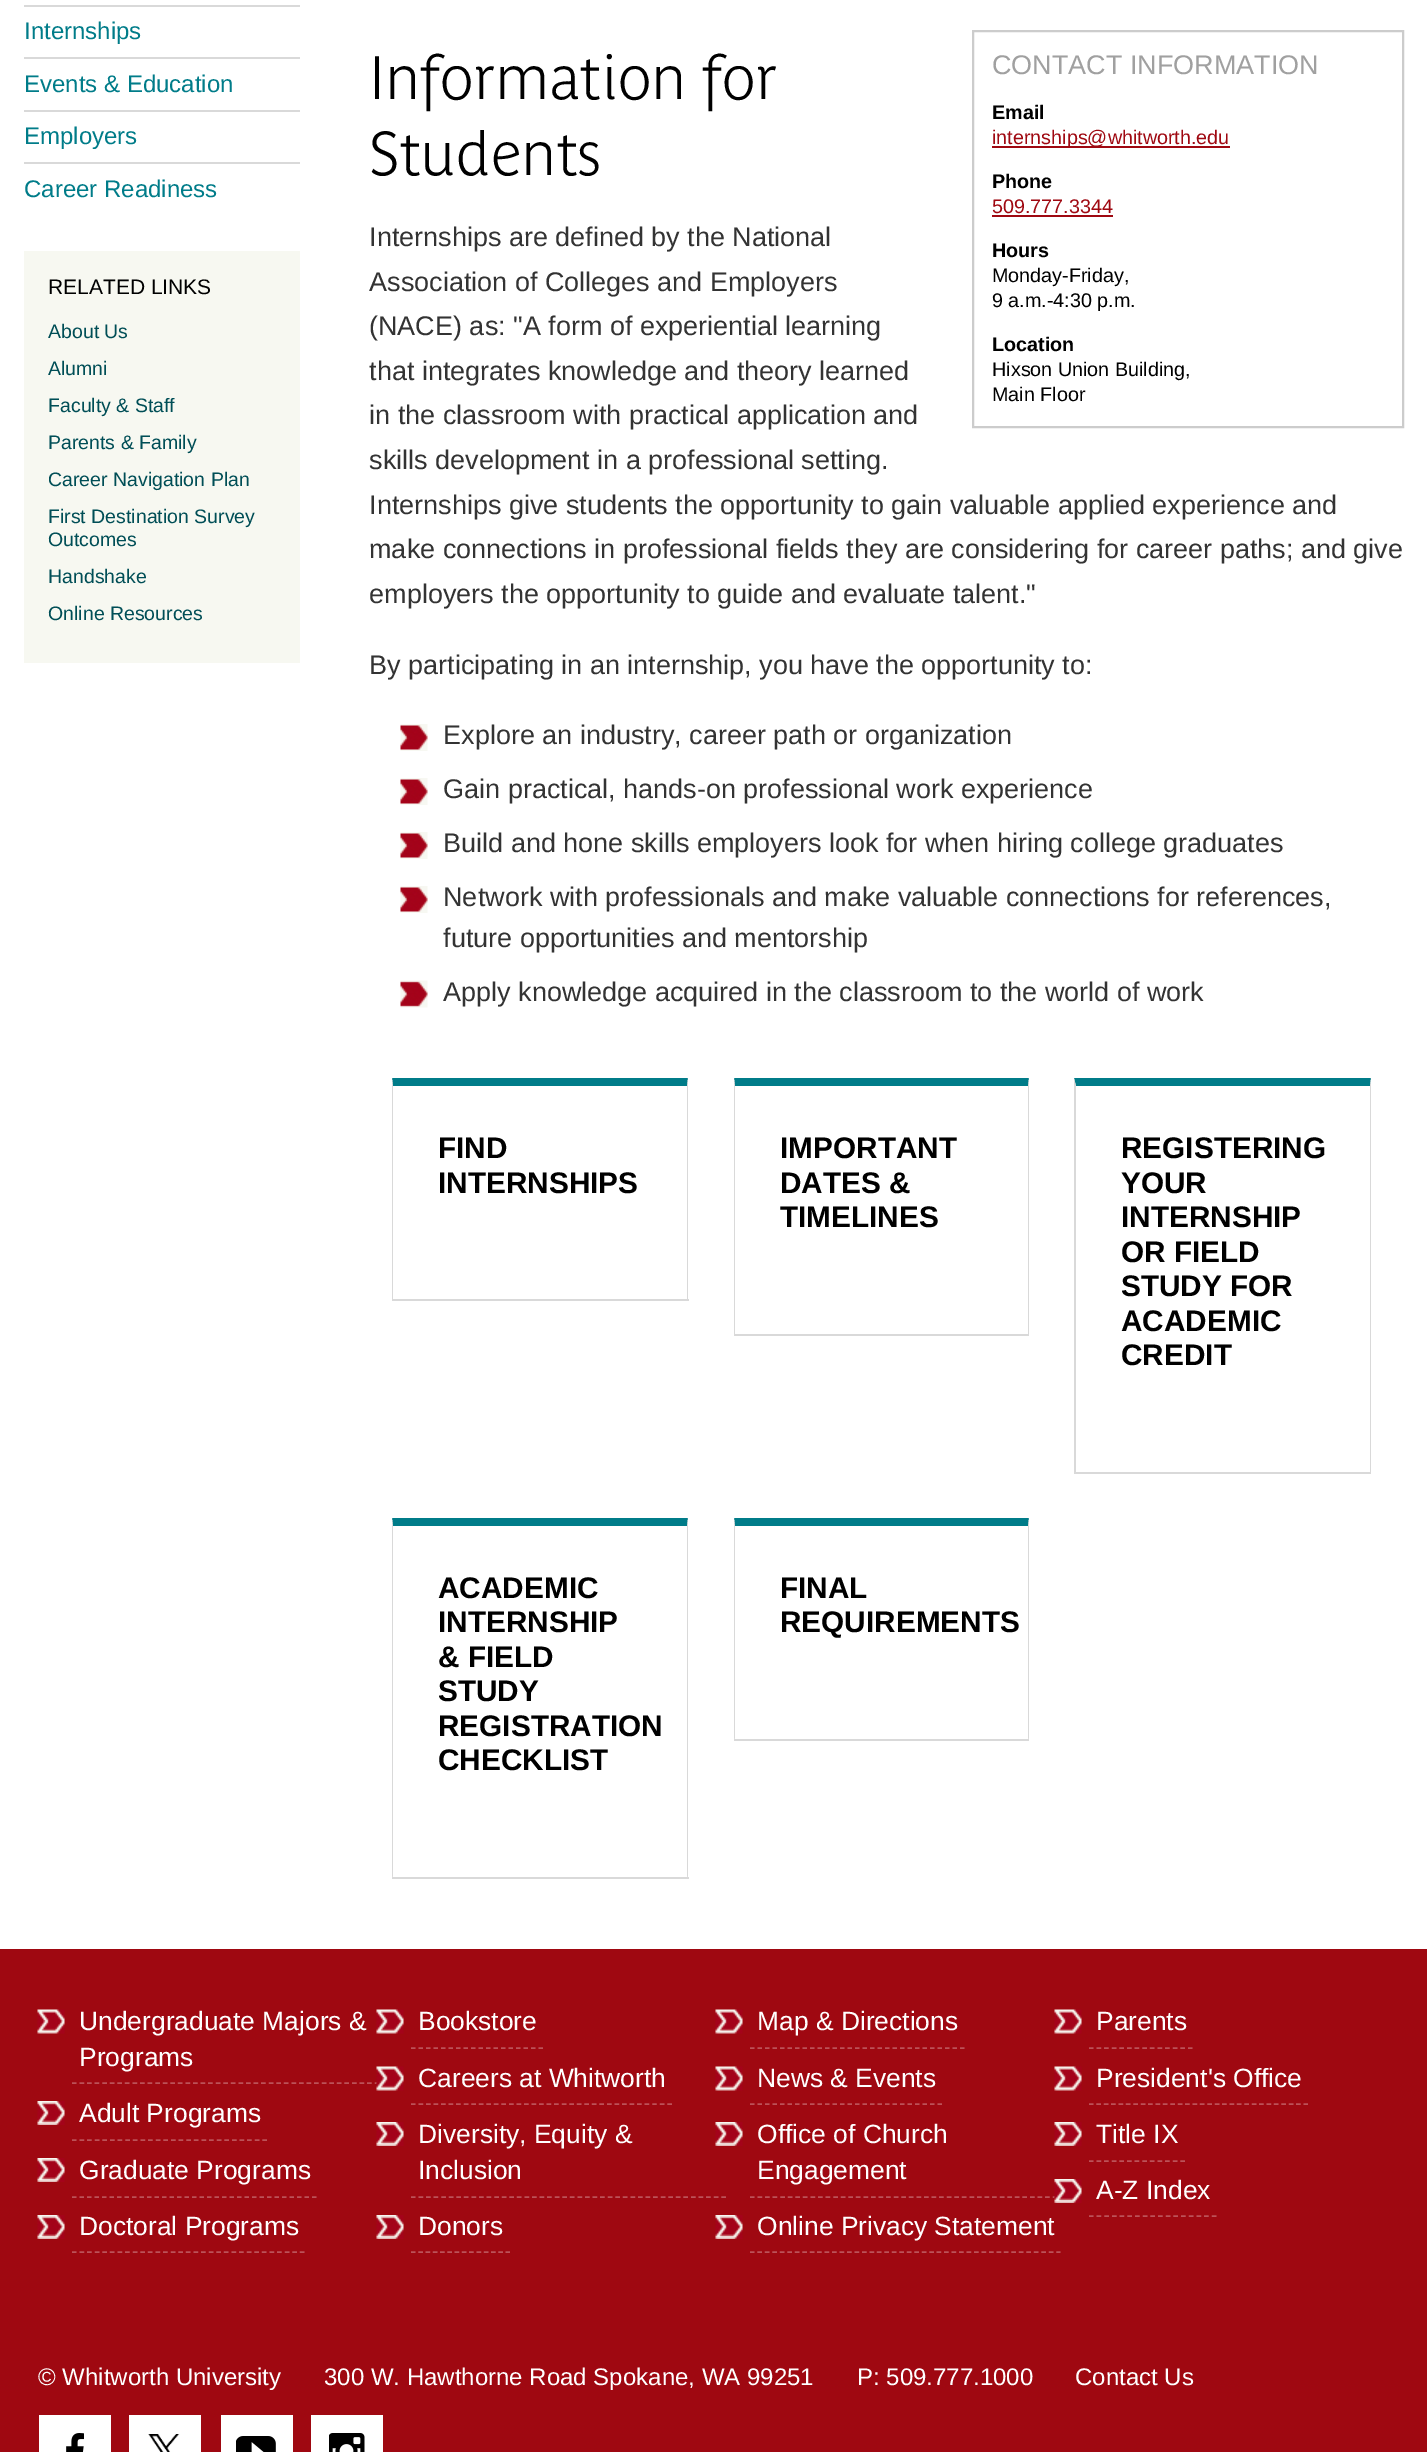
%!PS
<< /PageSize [1427 2452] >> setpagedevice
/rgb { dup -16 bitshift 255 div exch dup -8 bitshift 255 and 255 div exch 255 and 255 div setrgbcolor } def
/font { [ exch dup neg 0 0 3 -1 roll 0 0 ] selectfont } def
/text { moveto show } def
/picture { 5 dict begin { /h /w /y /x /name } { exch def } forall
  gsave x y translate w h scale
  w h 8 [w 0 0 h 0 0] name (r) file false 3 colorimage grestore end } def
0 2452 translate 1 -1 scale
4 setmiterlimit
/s1 { /LiberationSans-Regular 24 font 16#007C89 rgb } def
/s2 { /LiberationSans-Regular 21 font 16#000000 rgb } def
/s3 { /LiberationSans-Regular 19.5 font 16#004E56 rgb } def
/s4 { /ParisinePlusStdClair-Bold 60.75 font 16#000000 rgb } def
/s5 { /LiberationSans-Regular 27 font 16#333333 rgb } def
/s6 { /LiberationSans-Regular 27 font 16#A0A0A0 rgb } def
/s7 { /LiberationSans-Bold 19.75 font 16#000000 rgb } def
/s8 { /LiberationSans-Regular 19.75 font 16#9F0811 rgb } def
/s9 { /LiberationSans-Regular 19.75 font 16#000000 rgb } def
/s10 { /LiberationSans-Bold 29.75 font 16#000000 rgb } def
/s11 { /LiberationSans-Regular 26.4 font 16#FFFFFF rgb } def
/s12 { /LiberationSans-Regular 24 font 16#FFFFFF rgb } def
16#FFFFFF rgb
0 0 1427 2452 rectfill
16#D9D9D9 rgb
24 5 276 2 rectfill
s1
(Internships) 24 39 text
16#D9D9D9 rgb
24 57 276 2 rectfill
s1
(Events & Education) 24 92 text
16#D9D9D9 rgb
24 110 276 2 rectfill
s1
(Employers) 24 144 text
16#D9D9D9 rgb
24 162 276 2 rectfill
s1
(Career Readiness) 24 197 text
16#F7F8F1 rgb
24 251 276 412 rectfill
s2
(RELATED LINKS) 48 294 text
s3
(About Us) 48 338 text
(Alumni) 48 375 text
(Faculty & Staff) 48 412 text
(Parents & Family) 48 449 text
(Career Navigation Plan) 48 486 text
(First Destination Survey) 48 523 text
(Outcomes) 48 546 text
(Handshake) 48 583 text
(Online Resources) 48 620 text
s4
(Information for) 369 99 text
(Students) 369 175 text
s5
(Internships are defined by the National) 369 246 text
(Association of Colleges and Employers) 369 291 text
(\(NACE\) as: "A form of experiential learning) 369 335 text
(that integrates knowledge and theory learned) 369 380 text
(in the classroom with practical application and) 369 424 text
(skills development in a professional setting.) 369 469 text
(Internships give students the opportunity to gain valuable applied experience and) 369 514 text
(make connections in professional fields they are considering for career paths; and give) 369 558 text
(employers the opportunity to guide and evaluate talent.") 369 603 text
(By participating in an internship, you have the opportunity to:) 369 674 text
(pic1.raw) 400 724 28 27 picture
(Explore an industry, career path or organization) 443 744 text
(pic1.raw) 400 778 28 27 picture
(Gain practical, hands-on professional work experience) 443 798 text
(pic1.raw) 400 832 28 27 picture
(Build and hone skills employers look for when hiring college graduates) 443 852 text
(pic1.raw) 400 886 28 27 picture
(Network with professionals and make valuable connections for references,) 443 906 text
(future opportunities and mentorship) 443 947 text
(pic2.raw) 400 980 28 28 picture
(Apply knowledge acquired in the classroom to the world of work) 443 1001 text
16#CCCCCC rgb
2 setlinewidth
973 31 430 396 rectstroke
s6
(CONTACT INFORMATION) 992 74 text
s7
(Email) 992 119 text
16#9F0811 rgb
992 146 238 2 rectfill
s8
(internships@whitworth.edu) 992 144 text
s7
(Phone) 992 188 text
s8
(509.777.3344) 992 213 text
992 215 121 2 rectfill
s7
(Hours) 992 257 text
s9
(Monday-Friday,) 992 282 text
(9 a.m.-4:30 p.m.) 992 307 text
s7
(Location) 992 351 text
s9
(Hixson Union Building,) 992 376 text
(Main Floor) 992 401 text
16#007C89 rgb
392 1078 moveto 688 1078 lineto 687 1086 lineto 393 1086 lineto closepath fill
16#D9D9D9 rgb
688 1078 moveto 688 1300 lineto 687 1299 lineto 687 1086 lineto closepath fill
392 1299 297 2 rectfill
392 1300 moveto 392 1078 lineto 393 1086 lineto 393 1299 lineto closepath fill
s10
(FIND) 438 1158 text
(INTERNSHIPS) 438 1193 text
16#007C89 rgb
734 1078 moveto 1029 1078 lineto 1028 1086 lineto 735 1086 lineto closepath fill
16#D9D9D9 rgb
1029 1078 moveto 1029 1335 lineto 1028 1334 lineto 1028 1086 lineto closepath fill
734 1334 295 2 rectfill
734 1335 moveto 734 1078 lineto 735 1086 lineto 735 1334 lineto closepath fill
s10
(IMPORTANT) 780 1158 text
(DATES &) 780 1193 text
(TIMELINES) 780 1227 text
16#007C89 rgb
1074 1078 moveto 1371 1078 lineto 1370 1086 lineto 1076 1086 lineto closepath fill
16#D9D9D9 rgb
1371 1078 moveto 1371 1473 lineto 1370 1472 lineto 1370 1086 lineto closepath fill
1074 1472 297 2 rectfill
1074 1473 moveto 1074 1078 lineto 1076 1086 lineto 1076 1472 lineto closepath fill
s10
(REGISTERING) 1121 1158 text
(YOUR) 1121 1193 text
(INTERNSHIP) 1121 1227 text
(OR FIELD) 1121 1262 text
(STUDY FOR) 1121 1296 text
(ACADEMIC) 1121 1331 text
(CREDIT) 1121 1365 text
16#007C89 rgb
392 1518 moveto 688 1518 lineto 687 1526 lineto 393 1526 lineto closepath fill
16#D9D9D9 rgb
688 1518 moveto 688 1878 lineto 687 1876 lineto 687 1526 lineto closepath fill
392 1877 297 2 rectfill
392 1878 moveto 392 1518 lineto 393 1526 lineto 393 1876 lineto closepath fill
s10
(ACADEMIC) 438 1598 text
(INTERNSHIP) 438 1632 text
(& FIELD) 438 1667 text
(STUDY) 438 1701 text
(REGISTRATION) 438 1736 text
(CHECKLIST) 438 1770 text
16#007C89 rgb
734 1518 moveto 1029 1518 lineto 1028 1526 lineto 735 1526 lineto closepath fill
16#D9D9D9 rgb
1029 1518 moveto 1029 1740 lineto 1028 1738 lineto 1028 1526 lineto closepath fill
734 1739 295 2 rectfill
734 1740 moveto 734 1518 lineto 735 1526 lineto 735 1738 lineto closepath fill
s10
(FINAL) 780 1598 text
(REQUIREMENTS) 780 1632 text
16#9F0811 rgb
0 1949 1427 503 rectfill
(pic3.raw) 37 2009 28 25 picture
16#BC5258 rgb
1.5 setlinewidth
[4.5 3.07] 0 setdash
72 2083 moveto 387 2083 lineto stroke
s11
(Undergraduate Majors &) 79 2030 text
(Programs) 79 2066 text
(pic4.raw) 376 2009 28 25 picture
16#BC5258 rgb
[4.5 3] 0 setdash
411 2048 moveto 543 2048 lineto stroke
s11
(Bookstore) 418 2030 text
(pic4.raw) 715 2009 28 25 picture
16#BC5258 rgb
750 2048 moveto 964.5 2048 lineto stroke
s11
(Map & Directions) 757 2030 text
(pic4.raw) 1054 2009 28 25 picture
16#BC5258 rgb
[4.5 3.12] 0 setdash
1089 2048 moveto 1192.5 2048 lineto stroke
s11
(Parents) 1096 2030 text
(pic5.raw) 376 2066 28 25 picture
16#BC5258 rgb
[4.5 3.04] 0 setdash
411 2104 moveto 672 2104 lineto stroke
s11
(Careers at Whitworth) 418 2087 text
(pic4.raw) 715 2066 28 25 picture
16#BC5258 rgb
[4.5 3] 0 setdash
750 2104 moveto 942 2104 lineto stroke
s11
(News & Events) 757 2087 text
(pic4.raw) 1054 2066 28 25 picture
16#BC5258 rgb
[4.5 2.9] 0 setdash
1089 2104 moveto 1308 2104 lineto stroke
s11
(President's Office) 1096 2087 text
(pic6.raw) 37 2101 28 24 picture
16#BC5258 rgb
[4.5 3.12] 0 setdash
72 2140 moveto 267 2140 lineto stroke
s11
(Adult Programs) 79 2122 text
(pic7.raw) 376 2122 28 24 picture
16#BC5258 rgb
[4.5 3.07] 0 setdash
411 2197 moveto 726 2197 lineto stroke
s11
(Diversity, Equity &) 418 2143 text
(Inclusion) 418 2179 text
(pic7.raw) 715 2122 28 24 picture
16#BC5258 rgb
750 2197 moveto 1065 2197 lineto stroke
s11
(Office of Church) 757 2143 text
(Engagement) 757 2179 text
(pic7.raw) 1054 2122 28 24 picture
16#BC5258 rgb
[4.5 3.12] 0 setdash
1089 2161 moveto 1185 2161 lineto stroke
s11
(Title IX) 1096 2143 text
(pic6.raw) 37 2158 28 24 picture
16#BC5258 rgb
[4.5 3] 0 setdash
72 2197 moveto 316.5 2197 lineto stroke
s11
(Graduate Programs) 79 2179 text
(pic8.raw) 1054 2179 28 24 picture
16#BC5258 rgb
[4.5 3.18] 0 setdash
1089 2216 moveto 1216.5 2216 lineto stroke
s11
(A-Z Index) 1096 2199 text
(pic6.raw) 37 2215 28 24 picture
16#BC5258 rgb
[4.5 3.1] 0 setdash
72 2252 moveto 304.5 2252 lineto stroke
s11
(Doctoral Programs) 79 2235 text
(pic7.raw) 376 2215 28 24 picture
16#BC5258 rgb
[4.5 2.78] 0 setdash
411 2252 moveto 510 2252 lineto stroke
s11
(Donors) 418 2235 text
(pic7.raw) 715 2215 28 24 picture
16#BC5258 rgb
[4.5 2.97] 0 setdash
750 2252 moveto 1060.5 2252 lineto stroke
s11
(Online Privacy Statement) 757 2235 text
s12
(© Whitworth University) 38 2385 text
(300 W. Hawthorne Road Spokane, WA 99251) 324 2385 text
(P: 509.777.1000) 857 2385 text
(Contact Us) 1075 2385 text
39 2415 72 37 rectfill
(pic9.raw) 66 2433 18 19 picture
129 2415 72 37 rectfill
(pic10.raw) 148 2434 32 18 picture
221 2415 72 37 rectfill
(pic11.raw) 236 2436 40 16 picture
311 2415 72 37 rectfill
(pic12.raw) 329 2433 36 19 picture
showpage
